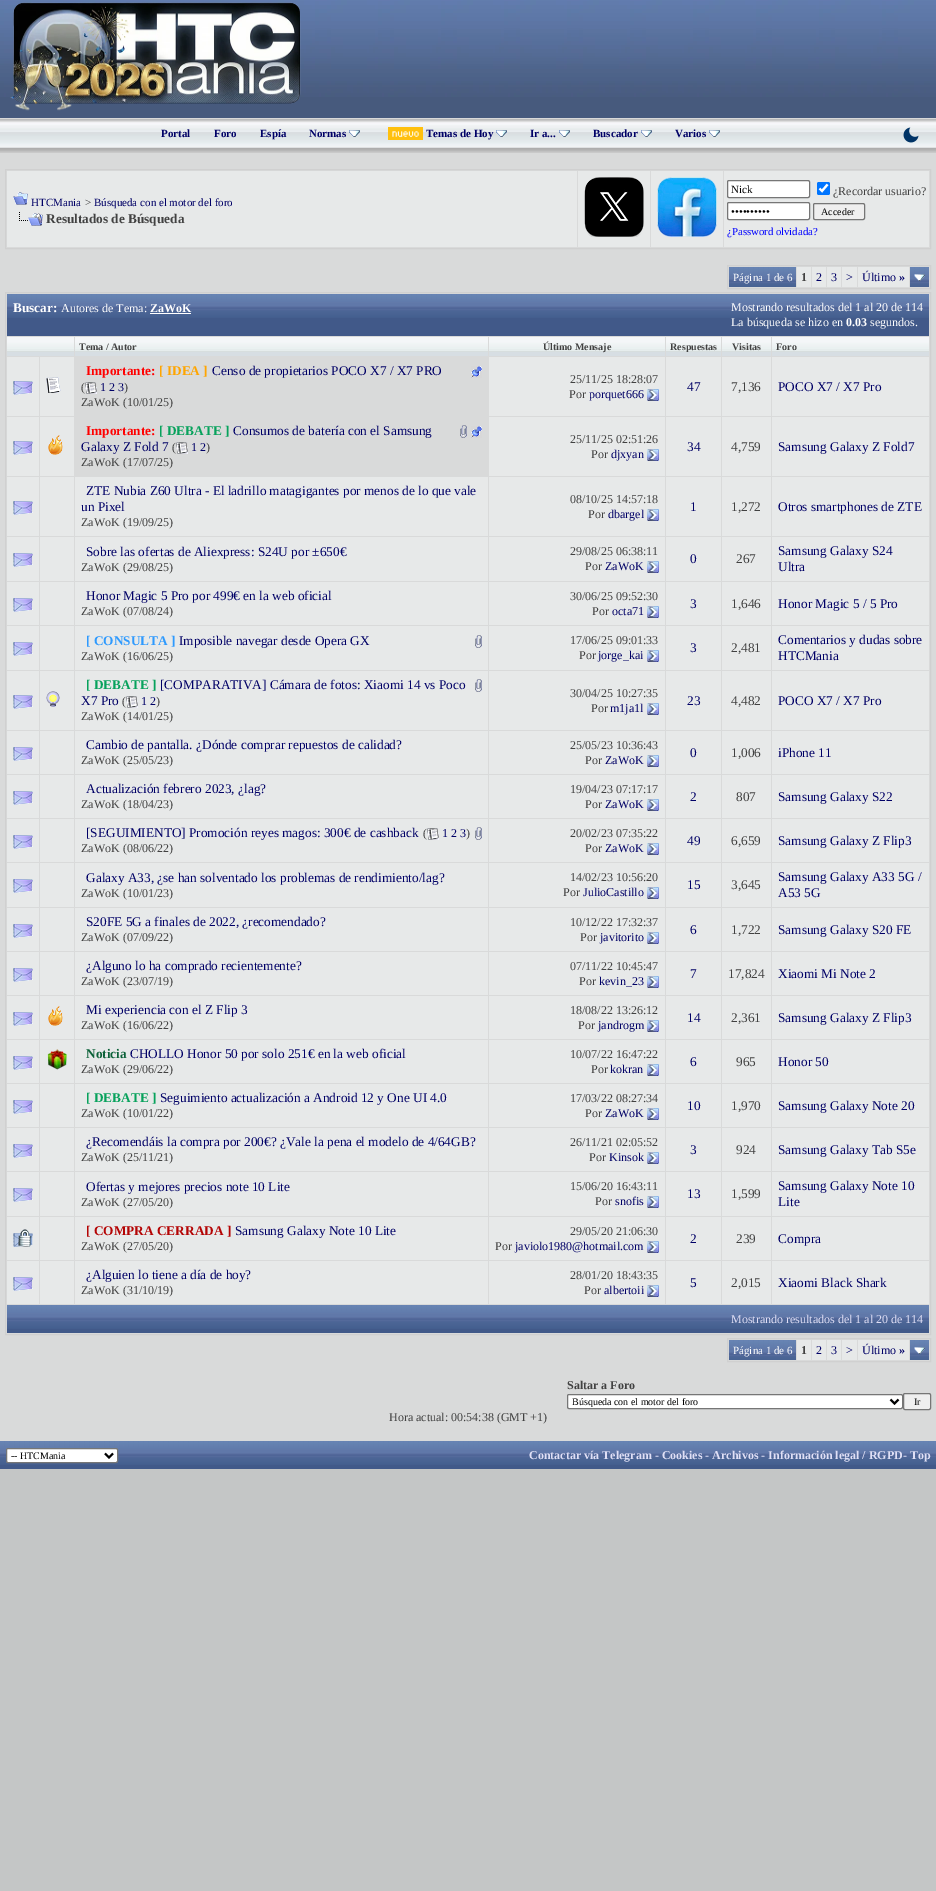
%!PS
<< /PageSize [936 1891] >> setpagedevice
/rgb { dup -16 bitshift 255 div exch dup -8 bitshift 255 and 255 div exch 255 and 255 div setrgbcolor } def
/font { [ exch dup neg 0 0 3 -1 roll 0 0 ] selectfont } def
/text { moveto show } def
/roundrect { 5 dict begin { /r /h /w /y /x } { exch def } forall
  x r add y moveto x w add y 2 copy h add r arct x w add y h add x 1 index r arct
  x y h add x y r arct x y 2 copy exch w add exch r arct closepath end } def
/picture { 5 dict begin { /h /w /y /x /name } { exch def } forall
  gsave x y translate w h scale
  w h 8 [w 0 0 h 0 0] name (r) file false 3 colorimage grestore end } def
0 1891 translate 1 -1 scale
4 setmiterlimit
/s1 { /LiberationSerif-Bold 11 font 16#000066 rgb } def
/s2 { /LiberationSerif-Regular 11 font 16#000066 rgb } def
/s3 { /LiberationSerif-Regular 11 font 16#414141 rgb } def
/s4 { /LiberationSerif-Bold 13.3 font 16#414141 rgb } def
/s5 { /LiberationSerif-Regular 11 font 16#000000 rgb } def
/s6 { /LiberationSerif-Regular 12 font 16#414141 rgb } def
/s7 { /LiberationSerif-Regular 10 font 16#000000 rgb } def
/s8 { /LiberationSerif-Regular 10.75 font 16#0000FF rgb } def
/s9 { /LiberationSerif-Regular 11 font 16#FFFFFF rgb } def
/s10 { /LiberationSerif-Bold 12 font 16#414141 rgb } def
/s11 { /LiberationSerif-Regular 12 font 16#000066 rgb } def
/s12 { /LiberationSerif-Bold 12 font 16#000066 rgb } def
/s13 { /LiberationSerif-Bold 13.3 font 16#FFFFFF rgb } def
/s14 { /LiberationSerif-Regular 12 font 16#FFFFFF rgb } def
/s15 { /LiberationSerif-Bold 12 font 16#FFFFFF rgb } def
/s16 { /LiberationSerif-Bold 10 font 16#414141 rgb } def
/s17 { /LiberationSerif-Bold 13.3 font 16#FF0000 rgb } def
/s18 { /LiberationSerif-Bold 13.3 font 16#FFA500 rgb } def
/s19 { /LiberationSerif-Regular 13.3 font 16#000066 rgb } def
/s20 { /LiberationSerif-Regular 13.3 font 16#414141 rgb } def
/s21 { /LiberationSerif-Bold 13.3 font 16#07A25C rgb } def
/s22 { /LiberationSerif-Bold 13.3 font 16#2E9AFE rgb } def
/s23 { /LiberationSerif-Bold 13.3 font 16#0B6138 rgb } def
/s24 { /LiberationSerif-Bold 13.3 font 16#B40404 rgb } def
/s25 { /LiberationSerif-Regular 12 font 16#E0E0F6 rgb } def
/s26 { /LiberationSerif-Bold 12 font 16#E0E0F6 rgb } def
16#C4C6C6 rgb
0 0 936 1891 rectfill
16#475A7D rgb
0 97 936 21 rectfill
(pic1.raw) 0 0 936 97 picture
(pic2.raw) 10 2 291 109 picture
(pic3.raw) 0 118 936 35 picture
s1
(Portal) 161 137 text
(Foro) 214 137 text
(Espía) 260 137 text
(Normas) 309 137 text
(pic4.raw) 349 130 11 7 picture
(pic5.raw) 388 127 35 13 picture
(Temas de Hoy) 426 137 text
(pic4.raw) 496 130 11 7 picture
(Ir a...) 530 137 text
(pic4.raw) 559 130 11 7 picture
(Buscador) 593 137 text
(pic4.raw) 641 130 11 7 picture
(Varios) 675 137 text
(pic4.raw) 709 130 11 7 picture
(pic6.raw) 903 127 16 16 picture
16#D9DADA rgb
0 153 936 1288 rectfill
16#D0D0D0 rgb
5.5 169.5 925 79 rectstroke
16#E7E9E9 rgb
7 171 570 76 rectfill
(pic7.raw) 13 192 15 13 picture
s2
(HTCMania) 31 206 text
s3
(>) 85 206 text
s2
(Búsqueda con el motor del foro) 94 206 text
(pic8.raw) 19 212 24 14 picture
s4
(Resultados de Búsqueda) 46 223 text
16#E7E9E9 rgb
578 171 72 76 rectfill
(pic9.raw) 584 177 60 60 picture
651 171 72 76 rectfill
(pic10.raw) 657 177 60 60 picture
724 171 205 76 rectfill
16#FFFFFF rgb
727.5 180.5 82 17 1.5 roundrect gsave fill grestore
16#767676 rgb
stroke
s5
(Nick) 731 193 text
16#0075FF rgb
817 182 13 13 2 roundrect fill
16#FFFFFF rgb
2.1 setlinewidth
819.5 188.5 moveto 822 191 lineto 827.5 184.5 lineto stroke
s6
(¿Recordar usuario?) 833 195 text
16#FFFFFF rgb
727.5 202.5 82 17 1.5 roundrect gsave fill grestore
16#767676 rgb
1 setlinewidth
stroke
s5
(••••••••••) 731 215 text
16#EFEFEF rgb
813.5 203.5 51 16 1.5 roundrect gsave fill grestore
16#767676 rgb
stroke
s7
(Acceder) 821 215 text
s8
(¿Password olvidada?) 727 235 text
16#D0D0D0 rgb
727.5 265.5 203 23 rectstroke
(pic11.raw) 729 267 67 20 picture
s9
(Página 1 de 6) 733 281 text
16#E7E9E9 rgb
797 267 14 20 rectfill
s10
(1) 801 281 text
16#E7E9E9 rgb
812 267 14 20 rectfill
s11
(2) 816 281 text
16#E7E9E9 rgb
827 267 14 20 rectfill
s11
(3) 831 281 text
16#E7E9E9 rgb
842 267 15 20 rectfill
s11
(>) 846 281 text
16#E7E9E9 rgb
858 267 51 20 rectfill
s11
(Último) 862 281 text
s12
(») 899 281 text
(pic12.raw) 910 267 19 20 picture
(pic13.raw) 914 274 11 7 picture
16#D0D0D0 rgb
5.5 292.5 925 1042 rectstroke
16#415989 rgb
7 318 922 18 rectfill
(pic14.raw) 7 294 922 24 picture
s13
(Buscar:) 13 312 text
s14
(Autores de Tema:) 61 312 text
s15
(ZaWoK) 150 312 text
150 313 41 1 rectfill
s14
(Mostrando resultados del 1 al 20 de 114) 731 311 text
(La búsqueda se hizo en) 731 326 text
s15
(0.03) 846 326 text
s14
(segundos.) 870 326 text
16#D7DEE3 rgb
7 352 67 4 rectfill
(pic15.raw) 7 337 67 15 picture
75 352 413 4 rectfill
(pic16.raw) 75 337 413 15 picture
s16
(Tema / Autor) 79 350 text
16#D7DEE3 rgb
489 352 176 4 rectfill
(pic17.raw) 489 337 176 15 picture
s16
(Último Mensaje) 543 350 text
16#D7DEE3 rgb
666 352 55 4 rectfill
(pic18.raw) 666 337 55 15 picture
s16
(Respuestas) 670 350 text
16#D7DEE3 rgb
722 352 49 4 rectfill
(pic19.raw) 722 337 49 15 picture
s16
(Visitas) 732 350 text
16#D7DEE3 rgb
772 352 157 4 rectfill
(pic20.raw) 772 337 157 15 picture
s16
(Foro) 776 350 text
16#E7E9E9 rgb
7 357 32 59 rectfill
(pic21.raw) 13 381 20 14 picture
40 357 34 59 rectfill
(pic22.raw) 46 377 15 16 picture
s17
(Importante:) 86 375 text
s18
([ IDEA ]) 159 375 text
s19
(Censo de propietarios POCO X7 / X7 PRO) 212 375 text
(pic23.raw) 471 366 11 12 picture
s6
(\() 81 391 text
(pic24.raw) 85 382 12 12 picture
s11
(1 2 3) 100 391 text
s6
(\)) 124 391 text
(ZaWoK \(10/01/25\)) 81 406 text
16#E7E9E9 rgb
489 357 176 59 rectfill
s6
(25/11/25 18:28:07) 570 383 text
(Por) 569 398 text
s11
(porquet666) 589 398 text
(pic25.raw) 647 389 12 12 picture
16#E7E9E9 rgb
666 357 55 59 rectfill
s19
(47) 687 391 text
16#E7E9E9 rgb
722 357 49 59 rectfill
s20
(7,136) 731 391 text
16#E7E9E9 rgb
772 357 157 59 rectfill
s19
(POCO X7 / X7 Pro) 778 391 text
16#E7E9E9 rgb
7 417 32 59 rectfill
(pic21.raw) 13 441 20 14 picture
40 417 34 59 rectfill
(pic26.raw) 48 435 15 20 picture
s17
(Importante:) 86 435 text
s21
([ DEBATE ]) 159 435 text
s19
(Consumos de batería con el Samsung) 233 435 text
(pic27.raw) 460 425 7 13 picture
(pic23.raw) 471 426 11 12 picture
(Galaxy Z Fold 7) 81 451 text
s6
(\() 172 451 text
(pic24.raw) 176 442 12 12 picture
s11
(1 2) 191 451 text
s6
(\)) 206 451 text
(ZaWoK \(17/07/25\)) 81 466 text
16#E7E9E9 rgb
489 417 176 59 rectfill
s6
(25/11/25 02:51:26) 570 443 text
(Por) 591 458 text
s11
(djxyan) 611 458 text
(pic25.raw) 647 449 12 12 picture
16#E7E9E9 rgb
666 417 55 59 rectfill
s19
(34) 687 451 text
16#E7E9E9 rgb
722 417 49 59 rectfill
s20
(4,759) 731 451 text
16#E7E9E9 rgb
772 417 157 59 rectfill
s19
(Samsung Galaxy Z Fold7) 778 451 text
16#E7E9E9 rgb
7 477 32 59 rectfill
(pic21.raw) 13 501 20 14 picture
40 477 34 59 rectfill
75 477 413 59 rectfill
s19
(ZTE Nubia Z60 Ultra - El ladrillo matagigantes por menos de lo que vale) 86 495 text
(un Pixel) 81 511 text
s6
(ZaWoK \(19/09/25\)) 81 526 text
16#E7E9E9 rgb
489 477 176 59 rectfill
s6
(08/10/25 14:57:18) 570 503 text
(Por) 588 518 text
s11
(dbargel) 608 518 text
(pic25.raw) 647 509 12 12 picture
16#E7E9E9 rgb
666 477 55 59 rectfill
s19
(1) 690 511 text
16#E7E9E9 rgb
722 477 49 59 rectfill
s20
(1,272) 731 511 text
16#E7E9E9 rgb
772 477 157 59 rectfill
s19
(Otros smartphones de ZTE) 778 511 text
16#E7E9E9 rgb
7 537 32 44 rectfill
(pic21.raw) 13 553 20 14 picture
40 537 34 44 rectfill
75 537 413 44 rectfill
s19
(Sobre las ofertas de Aliexpress: S24U por ±650€) 86 556 text
s6
(ZaWoK \(29/08/25\)) 81 571 text
16#E7E9E9 rgb
489 537 176 44 rectfill
s6
(29/08/25 06:38:11) 570 555 text
(Por) 585 570 text
s11
(ZaWoK) 605 570 text
(pic25.raw) 647 561 12 12 picture
16#E7E9E9 rgb
666 537 55 44 rectfill
s19
(0) 690 563 text
16#E7E9E9 rgb
722 537 49 44 rectfill
s20
(267) 736 563 text
16#E7E9E9 rgb
772 537 157 44 rectfill
s19
(Samsung Galaxy S24) 778 555 text
(Ultra) 778 571 text
16#E7E9E9 rgb
7 582 32 43 rectfill
(pic21.raw) 13 598 20 14 picture
40 582 34 43 rectfill
75 582 413 43 rectfill
s19
(Honor Magic 5 Pro por 499€ en la web oficial) 86 600 text
s6
(ZaWoK \(07/08/24\)) 81 615 text
16#E7E9E9 rgb
489 582 176 43 rectfill
s6
(30/06/25 09:52:30) 570 600 text
(Por) 592 615 text
s11
(octa71) 612 615 text
(pic25.raw) 647 606 12 12 picture
16#E7E9E9 rgb
666 582 55 43 rectfill
s19
(3) 690 608 text
16#E7E9E9 rgb
722 582 49 43 rectfill
s20
(1,646) 731 608 text
16#E7E9E9 rgb
772 582 157 43 rectfill
s19
(Honor Magic 5 / 5 Pro) 778 608 text
16#E7E9E9 rgb
7 626 32 44 rectfill
(pic21.raw) 13 642 20 14 picture
40 626 34 44 rectfill
75 626 413 44 rectfill
s22
([ CONSULTA ]) 86 645 text
s19
(Imposible navegar desde Opera GX) 179 645 text
(pic28.raw) 475 635 7 13 picture
s6
(ZaWoK \(16/06/25\)) 81 660 text
16#E7E9E9 rgb
489 626 176 44 rectfill
s6
(17/06/25 09:01:33) 570 644 text
(Por) 579 659 text
s11
(jorge_kai) 598 659 text
(pic25.raw) 647 650 12 12 picture
16#E7E9E9 rgb
666 626 55 44 rectfill
s19
(3) 690 652 text
16#E7E9E9 rgb
722 626 49 44 rectfill
s20
(2,481) 731 652 text
16#E7E9E9 rgb
772 626 157 44 rectfill
s19
(Comentarios y dudas sobre) 778 644 text
(HTCMania) 778 660 text
16#E7E9E9 rgb
7 671 32 59 rectfill
(pic21.raw) 13 695 20 14 picture
40 671 34 59 rectfill
(pic29.raw) 46 691 14 16 picture
75 671 413 59 rectfill
s21
([ DEBATE ]) 86 689 text
s19
([COMPARATIVA] Cámara de fotos: Xiaomi 14 vs Poco) 160 689 text
(pic28.raw) 475 679 7 13 picture
(X7 Pro) 81 705 text
s6
(\() 122 705 text
(pic30.raw) 126 696 12 12 picture
s11
(1 2) 141 705 text
s6
(\)) 156 705 text
(ZaWoK \(14/01/25\)) 81 720 text
16#E7E9E9 rgb
489 671 176 59 rectfill
s6
(30/04/25 10:27:35) 570 697 text
(Por) 591 712 text
s11
(m1ja1l) 610 712 text
(pic25.raw) 647 703 12 12 picture
16#E7E9E9 rgb
666 671 55 59 rectfill
s19
(23) 687 705 text
16#E7E9E9 rgb
722 671 49 59 rectfill
s20
(4,482) 731 705 text
16#E7E9E9 rgb
772 671 157 59 rectfill
s19
(POCO X7 / X7 Pro) 778 705 text
16#E7E9E9 rgb
7 731 32 43 rectfill
(pic21.raw) 13 747 20 14 picture
40 731 34 43 rectfill
75 731 413 43 rectfill
s19
(Cambio de pantalla. ¿Dónde comprar repuestos de calidad?) 86 749 text
s6
(ZaWoK \(25/05/23\)) 81 764 text
16#E7E9E9 rgb
489 731 176 43 rectfill
s6
(25/05/23 10:36:43) 570 749 text
(Por) 585 764 text
s11
(ZaWoK) 605 764 text
(pic25.raw) 647 755 12 12 picture
16#E7E9E9 rgb
666 731 55 43 rectfill
s19
(0) 690 757 text
16#E7E9E9 rgb
722 731 49 43 rectfill
s20
(1,006) 731 757 text
16#E7E9E9 rgb
772 731 157 43 rectfill
s19
(iPhone 11) 778 757 text
16#E7E9E9 rgb
7 775 32 43 rectfill
(pic21.raw) 13 791 20 14 picture
40 775 34 43 rectfill
75 775 413 43 rectfill
s19
(Actualización febrero 2023, ¿lag?) 86 793 text
s6
(ZaWoK \(18/04/23\)) 81 808 text
16#E7E9E9 rgb
489 775 176 43 rectfill
s6
(19/04/23 07:17:17) 570 793 text
(Por) 585 808 text
s11
(ZaWoK) 605 808 text
(pic25.raw) 647 799 12 12 picture
16#E7E9E9 rgb
666 775 55 43 rectfill
s19
(2) 690 801 text
16#E7E9E9 rgb
722 775 49 43 rectfill
s20
(807) 736 801 text
16#E7E9E9 rgb
772 775 157 43 rectfill
s19
(Samsung Galaxy S22) 778 801 text
16#E7E9E9 rgb
7 819 32 43 rectfill
(pic21.raw) 13 835 20 14 picture
40 819 34 43 rectfill
75 819 413 43 rectfill
s19
([SEGUIMIENTO] Promoción reyes magos: 300€ de cashback) 86 837 text
s6
(\() 423 837 text
(pic31.raw) 427 828 12 12 picture
s11
(1 2 3) 442 837 text
s6
(\)) 466 837 text
(pic28.raw) 475 827 7 13 picture
(ZaWoK \(08/06/22\)) 81 852 text
16#E7E9E9 rgb
489 819 176 43 rectfill
s6
(20/02/23 07:35:22) 570 837 text
(Por) 585 852 text
s11
(ZaWoK) 605 852 text
(pic25.raw) 647 843 12 12 picture
16#E7E9E9 rgb
666 819 55 43 rectfill
s19
(49) 687 845 text
16#E7E9E9 rgb
722 819 49 43 rectfill
s20
(6,659) 731 845 text
16#E7E9E9 rgb
772 819 157 43 rectfill
s19
(Samsung Galaxy Z Flip3) 778 845 text
16#E7E9E9 rgb
7 863 32 44 rectfill
(pic21.raw) 13 879 20 14 picture
40 863 34 44 rectfill
75 863 413 44 rectfill
s19
(Galaxy A33, ¿se han solventado los problemas de rendimiento/lag?) 86 882 text
s6
(ZaWoK \(10/01/23\)) 81 897 text
16#E7E9E9 rgb
489 863 176 44 rectfill
s6
(14/02/23 10:56:20) 570 881 text
(Por) 563 896 text
s11
(JulioCastillo) 583 896 text
(pic25.raw) 647 887 12 12 picture
16#E7E9E9 rgb
666 863 55 44 rectfill
s19
(15) 687 889 text
16#E7E9E9 rgb
722 863 49 44 rectfill
s20
(3,645) 731 889 text
16#E7E9E9 rgb
772 863 157 44 rectfill
s19
(Samsung Galaxy A33 5G /) 778 881 text
(A53 5G) 778 897 text
16#E7E9E9 rgb
7 908 32 43 rectfill
(pic21.raw) 13 924 20 14 picture
40 908 34 43 rectfill
75 908 413 43 rectfill
s19
(S20FE 5G a finales de 2022, ¿recomendado?) 86 926 text
s6
(ZaWoK \(07/09/22\)) 81 941 text
16#E7E9E9 rgb
489 908 176 43 rectfill
s6
(10/12/22 17:32:37) 570 926 text
(Por) 580 941 text
s11
(javitorito) 600 941 text
(pic25.raw) 647 932 12 12 picture
16#E7E9E9 rgb
666 908 55 43 rectfill
s19
(6) 690 934 text
16#E7E9E9 rgb
722 908 49 43 rectfill
s20
(1,722) 731 934 text
16#E7E9E9 rgb
772 908 157 43 rectfill
s19
(Samsung Galaxy S20 FE) 778 934 text
16#E7E9E9 rgb
7 952 32 43 rectfill
(pic21.raw) 13 968 20 14 picture
40 952 34 43 rectfill
75 952 413 43 rectfill
s19
(¿Alguno lo ha comprado recientemente?) 86 970 text
s6
(ZaWoK \(23/07/19\)) 81 985 text
16#E7E9E9 rgb
489 952 176 43 rectfill
s6
(07/11/22 10:45:47) 570 970 text
(Por) 579 985 text
s11
(kevin_23) 599 985 text
(pic25.raw) 647 976 12 12 picture
16#E7E9E9 rgb
666 952 55 43 rectfill
s19
(7) 690 978 text
16#E7E9E9 rgb
722 952 49 43 rectfill
s20
(17,824) 728 978 text
16#E7E9E9 rgb
772 952 157 43 rectfill
s19
(Xiaomi Mi Note 2) 778 978 text
16#E7E9E9 rgb
7 996 32 43 rectfill
(pic21.raw) 13 1012 20 14 picture
40 996 34 43 rectfill
(pic26.raw) 48 1006 15 20 picture
75 996 413 43 rectfill
s19
(Mi experiencia con el Z Flip 3) 86 1014 text
s6
(ZaWoK \(16/06/22\)) 81 1029 text
16#E7E9E9 rgb
489 996 176 43 rectfill
s6
(18/08/22 13:26:12) 570 1014 text
(Por) 578 1029 text
s11
(jandrogm) 598 1029 text
(pic25.raw) 647 1020 12 12 picture
16#E7E9E9 rgb
666 996 55 43 rectfill
s19
(14) 687 1022 text
16#E7E9E9 rgb
722 996 49 43 rectfill
s20
(2,361) 731 1022 text
16#E7E9E9 rgb
772 996 157 43 rectfill
s19
(Samsung Galaxy Z Flip3) 778 1022 text
16#E7E9E9 rgb
7 1040 32 43 rectfill
(pic21.raw) 13 1056 20 14 picture
40 1040 34 43 rectfill
(pic32.raw) 47 1049 20 21 picture
75 1040 413 43 rectfill
s23
(Noticia) 86 1058 text
s19
(CHOLLO Honor 50 por solo 251€ en la web oficial) 130 1058 text
s6
(ZaWoK \(29/06/22\)) 81 1073 text
16#E7E9E9 rgb
489 1040 176 43 rectfill
s6
(10/07/22 16:47:22) 570 1058 text
(Por) 591 1073 text
s11
(kokran) 610 1073 text
(pic25.raw) 647 1064 12 12 picture
16#E7E9E9 rgb
666 1040 55 43 rectfill
s19
(6) 690 1066 text
16#E7E9E9 rgb
722 1040 49 43 rectfill
s20
(965) 736 1066 text
16#E7E9E9 rgb
772 1040 157 43 rectfill
s19
(Honor 50) 778 1066 text
16#E7E9E9 rgb
7 1084 32 43 rectfill
(pic21.raw) 13 1100 20 14 picture
40 1084 34 43 rectfill
75 1084 413 43 rectfill
s21
([ DEBATE ]) 86 1102 text
s19
(Seguimiento actualización a Android 12 y One UI 4.0) 160 1102 text
s6
(ZaWoK \(10/01/22\)) 81 1117 text
16#E7E9E9 rgb
489 1084 176 43 rectfill
s6
(17/03/22 08:27:34) 570 1102 text
(Por) 585 1117 text
s11
(ZaWoK) 605 1117 text
(pic25.raw) 647 1108 12 12 picture
16#E7E9E9 rgb
666 1084 55 43 rectfill
s19
(10) 687 1110 text
16#E7E9E9 rgb
722 1084 49 43 rectfill
s20
(1,970) 731 1110 text
16#E7E9E9 rgb
772 1084 157 43 rectfill
s19
(Samsung Galaxy Note 20) 778 1110 text
16#E7E9E9 rgb
7 1128 32 43 rectfill
(pic21.raw) 13 1144 20 14 picture
40 1128 34 43 rectfill
75 1128 413 43 rectfill
s19
(¿Recomendáis la compra por 200€? ¿Vale la pena el modelo de 4/64GB?) 86 1146 text
s6
(ZaWoK \(25/11/21\)) 81 1161 text
16#E7E9E9 rgb
489 1128 176 43 rectfill
s6
(26/11/21 02:05:52) 570 1146 text
(Por) 589 1161 text
s11
(Kinsok) 609 1161 text
(pic25.raw) 647 1152 12 12 picture
16#E7E9E9 rgb
666 1128 55 43 rectfill
s19
(3) 690 1154 text
16#E7E9E9 rgb
722 1128 49 43 rectfill
s20
(924) 736 1154 text
16#E7E9E9 rgb
772 1128 157 43 rectfill
s19
(Samsung Galaxy Tab S5e) 778 1154 text
16#E7E9E9 rgb
7 1172 32 44 rectfill
(pic21.raw) 13 1188 20 14 picture
40 1172 34 44 rectfill
75 1172 413 44 rectfill
s19
(Ofertas y mejores precios note 10 Lite) 86 1191 text
s6
(ZaWoK \(27/05/20\)) 81 1206 text
16#E7E9E9 rgb
489 1172 176 44 rectfill
s6
(15/06/20 16:43:11) 570 1190 text
(Por) 595 1205 text
s11
(snofis) 615 1205 text
(pic25.raw) 647 1196 12 12 picture
16#E7E9E9 rgb
666 1172 55 44 rectfill
s19
(13) 687 1198 text
16#E7E9E9 rgb
722 1172 49 44 rectfill
s20
(1,599) 731 1198 text
16#E7E9E9 rgb
772 1172 157 44 rectfill
s19
(Samsung Galaxy Note 10) 778 1190 text
(Lite) 778 1206 text
16#E7E9E9 rgb
7 1217 32 43 rectfill
(pic33.raw) 13 1229 20 18 picture
40 1217 34 43 rectfill
75 1217 413 43 rectfill
s24
([ COMPRA CERRADA ]) 86 1235 text
s19
(Samsung Galaxy Note 10 Lite) 235 1235 text
s6
(ZaWoK \(27/05/20\)) 81 1250 text
16#E7E9E9 rgb
489 1217 176 43 rectfill
s6
(29/05/20 21:06:30) 570 1235 text
(Por) 495 1250 text
s11
(javiolo1980@hotmail.com) 515 1250 text
(pic25.raw) 647 1241 12 12 picture
16#E7E9E9 rgb
666 1217 55 43 rectfill
s19
(2) 690 1243 text
16#E7E9E9 rgb
722 1217 49 43 rectfill
s20
(239) 736 1243 text
16#E7E9E9 rgb
772 1217 157 43 rectfill
s19
(Compra) 778 1243 text
16#E7E9E9 rgb
7 1261 32 43 rectfill
(pic21.raw) 13 1277 20 14 picture
40 1261 34 43 rectfill
75 1261 413 43 rectfill
s19
(¿Alguien lo tiene a día de hoy?) 86 1279 text
s6
(ZaWoK \(31/10/19\)) 81 1294 text
16#E7E9E9 rgb
489 1261 176 43 rectfill
s6
(28/01/20 18:43:35) 570 1279 text
(Por) 584 1294 text
s11
(albertoii) 604 1294 text
(pic25.raw) 647 1285 12 12 picture
16#E7E9E9 rgb
666 1261 55 43 rectfill
s19
(5) 690 1287 text
16#E7E9E9 rgb
722 1261 49 43 rectfill
s20
(2,015) 731 1287 text
16#E7E9E9 rgb
772 1261 157 43 rectfill
s19
(Xiaomi Black Shark) 778 1287 text
16#415989 rgb
7 1329 922 4 rectfill
(pic14.raw) 7 1305 922 24 picture
s25
(Mostrando resultados del 1 al 20 de 114) 731 1323 text
16#D0D0D0 rgb
727.5 1338.5 203 23 rectstroke
(pic11.raw) 729 1340 67 20 picture
s9
(Página 1 de 6) 733 1354 text
16#E7E9E9 rgb
797 1340 14 20 rectfill
s10
(1) 801 1354 text
16#E7E9E9 rgb
812 1340 14 20 rectfill
s11
(2) 816 1354 text
16#E7E9E9 rgb
827 1340 14 20 rectfill
s11
(3) 831 1354 text
16#E7E9E9 rgb
842 1340 15 20 rectfill
s11
(>) 846 1354 text
16#E7E9E9 rgb
858 1340 51 20 rectfill
s11
(Último) 862 1354 text
s12
(») 899 1354 text
(pic12.raw) 910 1340 19 20 picture
(pic13.raw) 914 1347 11 7 picture
s10
(Saltar a Foro) 567 1389 text
16#FFFFFF rgb
567.5 1394.5 335 14 1.5 roundrect gsave fill grestore
16#767676 rgb
stroke
16#000000 rgb
2 setlinewidth
890.5 1399.5 moveto 894.5 1403.5 lineto 898.5 1399.5 lineto stroke
s7
(Búsqueda con el motor del foro) 572 1405 text
16#EFEFEF rgb
903.5 1393.5 27 16 1.5 roundrect gsave fill grestore
16#767676 rgb
1 setlinewidth
stroke
s7
(Ir) 914 1405 text
s6
(Hora actual: 00:54:38 \(GMT +1\)) 389 1421 text
16#415989 rgb
0 1465 936 4 rectfill
(pic34.raw) 0 1441 124 24 picture
16#FFFFFF rgb
6.5 1448.5 111 14 1.5 roundrect gsave fill grestore
16#767676 rgb
stroke
16#000000 rgb
2 setlinewidth
105 1453.5 moveto 109 1457.5 lineto 113 1453.5 lineto stroke
s7
(-- HTCMania) 11 1459 text
(pic35.raw) 124 1441 812 24 picture
s26
(Contactar vía Telegram - Cookies - Archivos - Información legal / RGPD- Top) 529 1459 text
showpage
